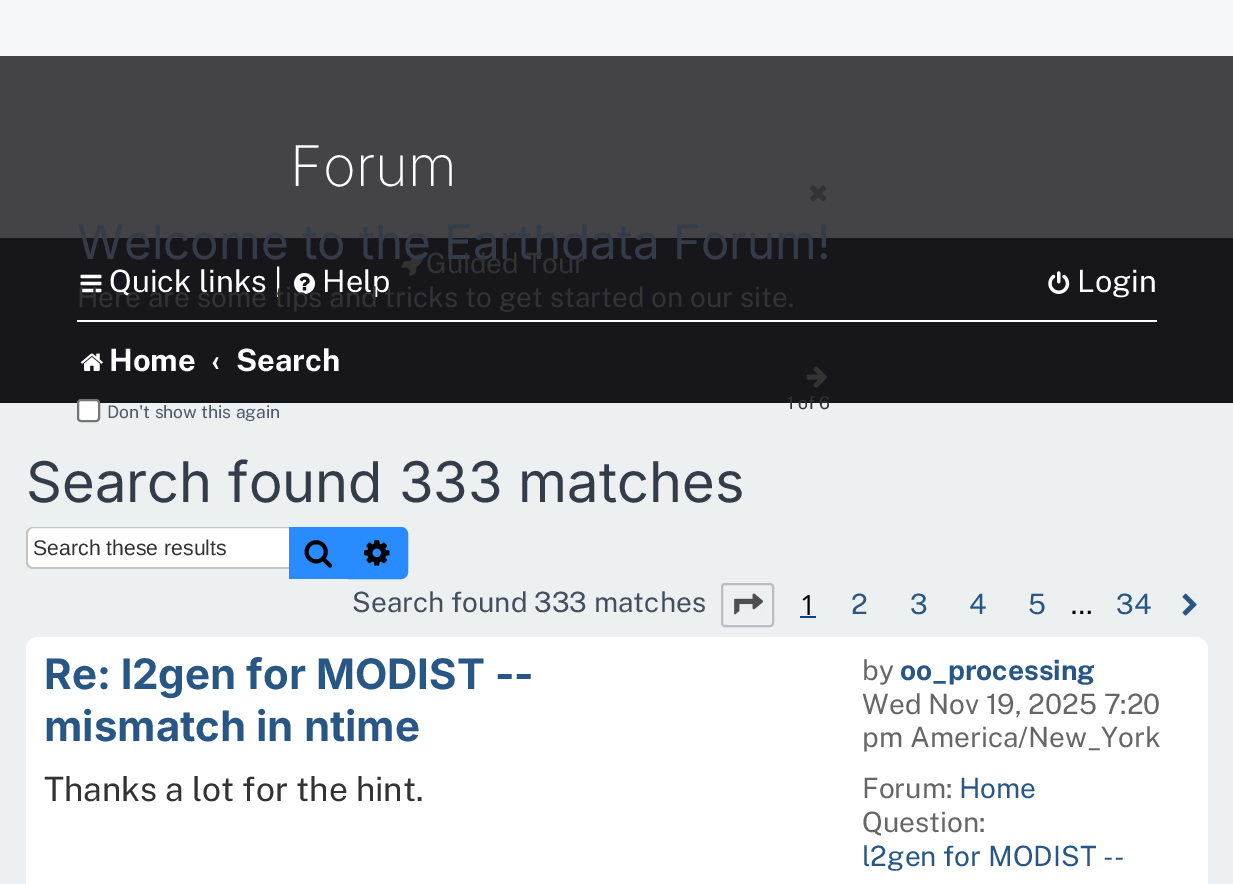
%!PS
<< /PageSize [1233 884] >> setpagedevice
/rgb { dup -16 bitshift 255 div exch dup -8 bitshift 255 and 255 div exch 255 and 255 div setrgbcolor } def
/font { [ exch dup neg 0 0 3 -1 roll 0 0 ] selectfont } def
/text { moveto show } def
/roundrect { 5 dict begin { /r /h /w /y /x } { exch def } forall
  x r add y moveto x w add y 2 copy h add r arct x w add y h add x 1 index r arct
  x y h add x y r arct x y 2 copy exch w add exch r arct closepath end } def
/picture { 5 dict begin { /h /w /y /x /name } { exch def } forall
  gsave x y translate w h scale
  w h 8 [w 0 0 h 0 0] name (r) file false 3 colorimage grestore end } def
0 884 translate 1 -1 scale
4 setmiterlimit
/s1 { /Inter-ExtraLight 56 font 16#FFFFFF rgb } def
/s2 { /Inter-Regular 47.6 font 16#353C49 rgb } def
/s3 { /PublicSans-Regular 30.75 font 16#FFFFFF rgb } def
/s4 { /PublicSans-Regular 28 font 16#333333 rgb } def
/s5 { /PublicSans-Regular 17.5 font 16#333333 rgb } def
/s6 { /PublicSans-Regular 17.5 font 16#50596C rgb } def
/s7 { /PublicSans-Bold 30.75 font 16#FFFFFF rgb } def
/s8 { /Inter-Regular 56 font 16#353C49 rgb } def
/s9 { /LiberationSans-Regular 21.25 font 16#333333 rgb } def
/s10 { /PublicSans-Regular 28 font 16#454E5F rgb } def
/s11 { /OpenSans-Regular 28 font 16#000000 rgb } def
/s12 { /PublicSans-Regular 28 font 16#285786 rgb } def
/s13 { /PublicSans-Regular 28 font 16#000000 rgb } def
/s14 { /Inter-Bold 42 font 16#285786 rgb } def
/s15 { /PublicSans-Regular 33.6 font 16#333333 rgb } def
/s16 { /PublicSans-Regular 28 font 16#666666 rgb } def
/s17 { /PublicSans-Bold 28 font 16#285786 rgb } def
16#F6F7FA rgb
0 0 1233 884 rectfill
16#ECF0F1 rgb
0 403 1233 481 rectfill
16#444447 rgb
0 56 1233 182 rectfill
s1
(Forum) 290 186 text
16#17171B rgb
0 238 1233 165 rectfill
(pic1.raw) 810 185 16 17 picture
(pic3.raw) 401 253 23 23 picture
s2
(Welcome to the Earthdata Forum!) 77 259 text
(pic4.raw) 80 274 22 19 picture
s3
(Quick links |) 109 292 text
(pic5.raw) 294 273 21 21 picture
(Help) 322 292 text
s4
(Here are some tips and tricks to get started on our site.) 77 307 text
(pic2.raw) 806 366 21 22 picture
s5
(1 of 6) 787 409 text
16#FFFFFF rgb
78 400 21 21 3 roundrect gsave fill grestore
16#767676 rgb
2 setlinewidth
stroke
s6
(Don't show this again) 107 418 text
s4
(Guided Tour) 426 273 text
(pic6.raw) 1048 271 22 23 picture
s3
(Login) 1077 292 text
77 320 1080 2 rectfill
(pic7.raw) 80 353 23 18 picture
s7
(Home) 109 371 text
(‹) 211 371 text
(Search) 236 371 text
s8
(Search found 333 matches) 26 502 text
16#FFFFFF rgb
33 529 moveto 289 529 lineto 289 567 lineto 33 567 lineto 30 567 28 565 28 562 curveto 28 534 lineto 28 531 30 529 33 529 curveto closepath fill
16#C7C3BF rgb
33 527 moveto 289 527 lineto 289 569 lineto 33 569 lineto 29 569 26 566 26 562 curveto 26 534 lineto 26 530 29 527 33 527 curveto closepath 33 528 moveto 289 528 lineto 289 567 lineto 33 567 lineto 30 567 28 565 28 562 curveto 28 534 lineto 28 531 30 528 33 528 curveto closepath eofill
s9
(Search these results) 33 555 text
16#288BFF rgb
289 527 59 52 rectfill
(pic8.raw) 304 540 29 28 picture
349 528 moveto 401 528 lineto 404.5 528 407 530.5 407 534 curveto 407 572 lineto 407 575.5 404.5 578 401 578 curveto 349 578 lineto closepath gsave fill grestore
stroke
(pic9.raw) 364 540 26 26 picture
s10
(Search found 333 matches) 352 612 text
16#BABEC2 rgb
722 584 51 42 3 roundrect stroke
(pic10.raw) 734 593 29 22 picture
s11
(1) 800 615 text
16#0B3D91 rgb
800 616 16 2 rectfill
s12
(2) 851 614 text
(3) 910 614 text
(4) 969 614 text
(5) 1028 614 text
s13
(…) 1071 614 text
s12
(34) 1116 614 text
(pic11.raw) 1182 593 15 23 picture
16#FFFFFF rgb
26 637 1182 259 12 roundrect fill
s14
(Re: l2gen for MODIST --) 44 689 text
(mismatch in ntime) 44 741 text
s15
(Thanks a lot for the hint.) 44 801 text
s16
(by) 862 680 text
s17
(oo_processing) 900 680 text
s16
(Wed Nov 19, 2025 7:20) 862 714 text
(pm America/New_York) 862 747 text
(Forum:) 862 798 text
s12
(Home) 959 798 text
s16
(Question:) 862 832 text
s12
(l2gen for MODIST --) 862 866 text
showpage
